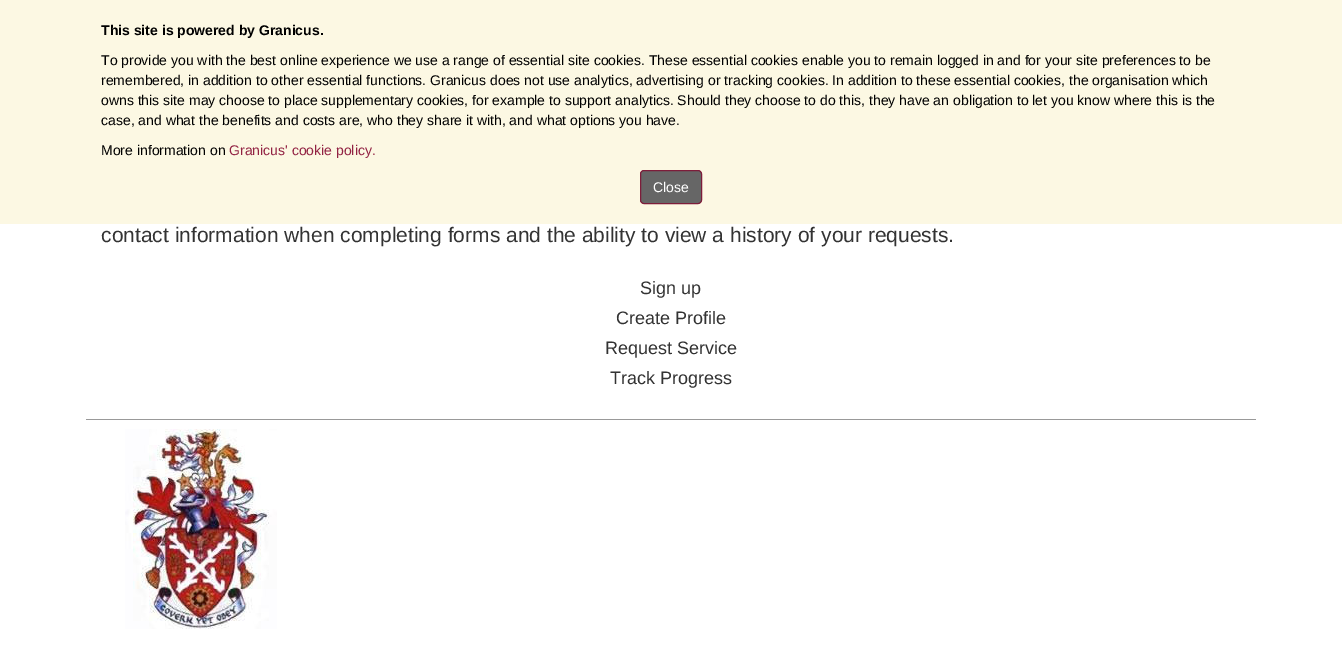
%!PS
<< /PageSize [1342 660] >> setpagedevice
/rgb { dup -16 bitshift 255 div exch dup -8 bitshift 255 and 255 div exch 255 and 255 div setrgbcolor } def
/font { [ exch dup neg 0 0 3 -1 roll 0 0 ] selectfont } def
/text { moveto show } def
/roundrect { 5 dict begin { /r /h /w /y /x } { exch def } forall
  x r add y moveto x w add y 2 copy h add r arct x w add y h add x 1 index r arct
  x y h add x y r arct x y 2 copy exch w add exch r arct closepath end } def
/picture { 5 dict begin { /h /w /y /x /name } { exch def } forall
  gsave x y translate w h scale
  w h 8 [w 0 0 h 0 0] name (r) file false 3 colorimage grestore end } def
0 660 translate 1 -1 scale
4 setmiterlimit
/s1 { /LiberationSans-Bold 14 font 16#000000 rgb } def
/s2 { /LiberationSans-Regular 14 font 16#000000 rgb } def
/s3 { /LiberationSans-Regular 14 font 16#922243 rgb } def
/s4 { /LiberationSans-Regular 14 font 16#FFFFFF rgb } def
/s5 { /LiberationSans-Regular 21 font 16#333333 rgb } def
/s6 { /LiberationSans-Regular 18 font 16#333333 rgb } def
16#FFFFFF rgb
0 0 1342 660 rectfill
16#FCF8E3 rgb
0 0 1342 224 rectfill
s1
(This site is powered by Granicus.) 101 35 text
s2
(To provide you with the best online experience we use a range of essential site cookies. These essential cookies enable you to remain logged in and for your site preferences to be) 101 65 text
(remembered, in addition to other essential functions. Granicus does not use analytics, advertising or tracking cookies. In addition to these essential cookies, the organisation which) 101 85 text
(owns this site may choose to place supplementary cookies, for example to support analytics. Should they choose to do this, they have an obligation to let you know where this is the) 101 105 text
(case, and what the benefits and costs are, who they share it with, and what options you have.) 101 125 text
(More information on) 101 155 text
s3
(Granicus' cookie policy.) 229 155 text
16#666666 rgb
640.5 170.5 61 33 3.5 roundrect gsave fill grestore
16#7D1D3A rgb
stroke
s4
(Close) 653 192 text
s5
(contact information when completing forms and the ability to view a history of your requests.) 101 242 text
s6
(Sign up) 640 294 text
(Create Profile) 616 324 text
(Request Service) 605 354 text
(Track Progress) 610 384 text
16#999999 rgb
86 419 1170 1 rectfill
(pic1.raw) 125 429 152 200 picture
showpage
